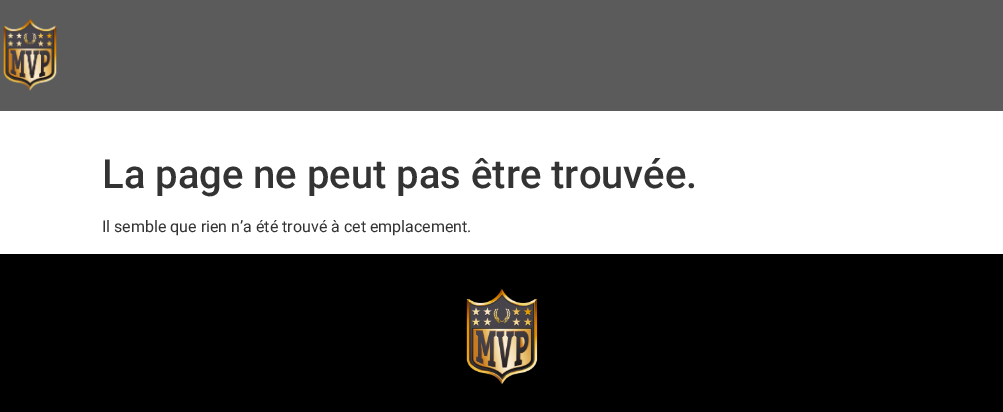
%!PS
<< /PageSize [1003 412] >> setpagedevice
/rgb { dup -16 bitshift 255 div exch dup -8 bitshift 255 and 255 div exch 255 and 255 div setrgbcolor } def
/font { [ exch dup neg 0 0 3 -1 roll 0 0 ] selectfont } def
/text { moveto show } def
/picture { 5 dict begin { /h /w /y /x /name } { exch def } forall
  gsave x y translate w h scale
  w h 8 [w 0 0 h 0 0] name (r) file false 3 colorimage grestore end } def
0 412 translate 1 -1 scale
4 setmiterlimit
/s1 { /Roboto-Medium 40 font 16#333333 rgb } def
/s2 { /Roboto-Regular 16 font 16#333333 rgb } def
16#FFFFFF rgb
0 0 1003 412 rectfill
16#5B5B5B rgb
0 0 1003 111 rectfill
(pic1.raw) 3 18 54 73 picture
s1
(La page ne peut pas être trouvée.) 102 188 text
s2
(Il semble que rien n’a été trouvé à cet emplacement.) 102 232 text
16#000000 rgb
0 254 1003 158 rectfill
(pic2.raw) 466 288 72 97 picture
showpage
